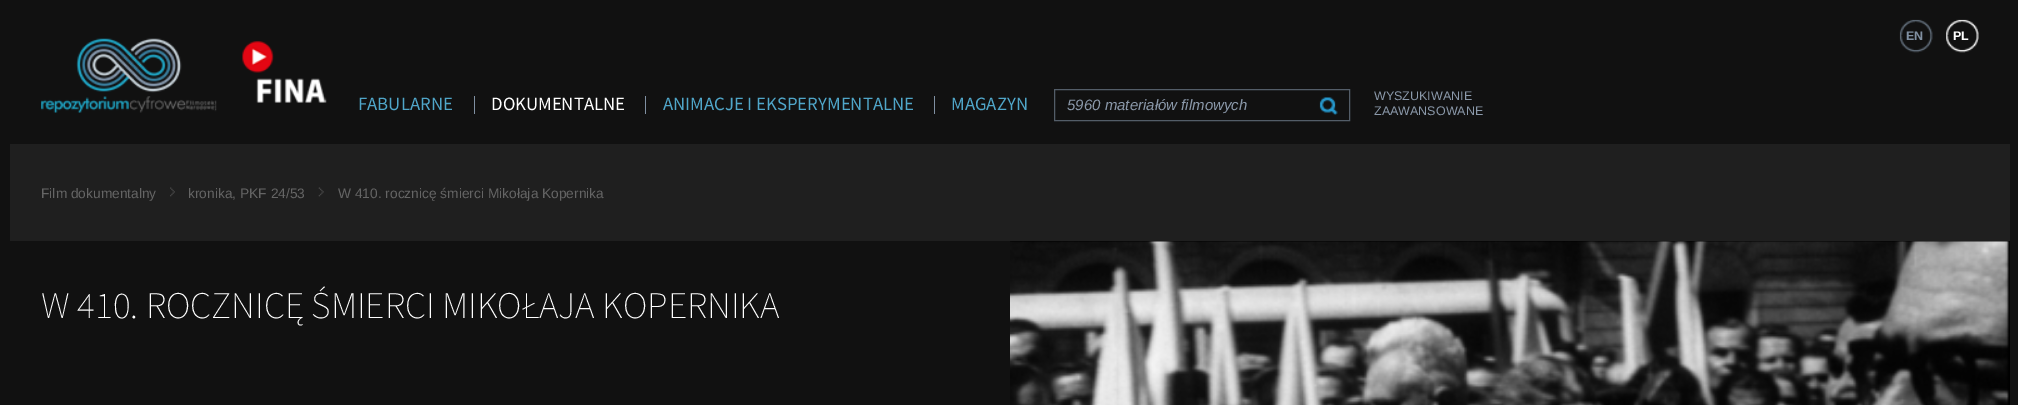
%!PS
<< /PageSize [2018 405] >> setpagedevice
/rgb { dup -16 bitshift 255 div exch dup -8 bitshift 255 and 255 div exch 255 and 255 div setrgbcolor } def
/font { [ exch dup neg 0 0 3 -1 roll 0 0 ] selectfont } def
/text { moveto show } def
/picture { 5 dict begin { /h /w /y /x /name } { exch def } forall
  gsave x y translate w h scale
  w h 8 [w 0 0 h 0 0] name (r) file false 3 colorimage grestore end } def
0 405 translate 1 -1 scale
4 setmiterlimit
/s1 { /LiberationSans-Bold 12.5 font 16#8090A2 rgb } def
/s2 { /LiberationSans-Bold 12.5 font 16#FFFFFF rgb } def
/s3 { /SourceSansPro-Regular 18.75 font 16#50A6C9 rgb } def
/s4 { /SourceSansPro-Regular 18.75 font 16#FFFFFF rgb } def
/s5 { /LiberationSans-Italic 15 font 16#8B99AA rgb } def
/s6 { /LiberationSans-Regular 12.5 font 16#8B99AA rgb } def
/s7 { /LiberationSans-Regular 13.75 font 16#656565 rgb } def
/s8 { /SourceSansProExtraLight-ExtraLight 37.5 font 16#FFFFFF rgb } def
16#111111 rgb
0 0 2018 405 rectfill
(pic1.raw) 1899 19 34 34 picture
(pic2.raw) 1946 19 33 34 picture
s1
(EN) 1906 40 text
s2
(PL) 1953 40 text
(pic3.raw) 41 38 176 75 picture
(pic4.raw) 242 41 85 62 picture
s3
(FABULARNE) 358 110 text
s4
(DOKUMENTALNE) 491 110 text
16#8090A2 rgb
474 96 1 18 rectfill
s3
(ANIMACJE I EKSPERYMENTALNE) 663 110 text
16#8090A2 rgb
645 96 1 18 rectfill
s3
(MAGAZYN) 951 110 text
16#8090A2 rgb
934 96 1 18 rectfill
16#535D68 rgb
1054.5 89.5 295 31 rectstroke
s5
(5960 materiałów filmowych) 1067 110 text
(pic5.raw) 1319 97 19 18 picture
s6
(WYSZUKIWANIE) 1374 100 text
(ZAAWANSOWANE) 1374 115 text
16#1F1F1F rgb
10 144 2000 97 rectfill
s7
(Film dokumentalny) 41 198 text
(pic6.raw) 170 187 5 10 picture
(kronika, PKF 24/53) 188 198 text
(pic7.raw) 318 187 6 10 picture
(W 410. rocznicę śmierci Mikołaja Kopernika) 338 198 text
s8
(W 410. ROCZNICĘ ŚMIERCI MIKOŁAJA KOPERNIKA) 41 318 text
16#000000 rgb
1010 241 1000 1 rectfill
(pic8.raw) 1010 241 1000 164 picture
showpage
